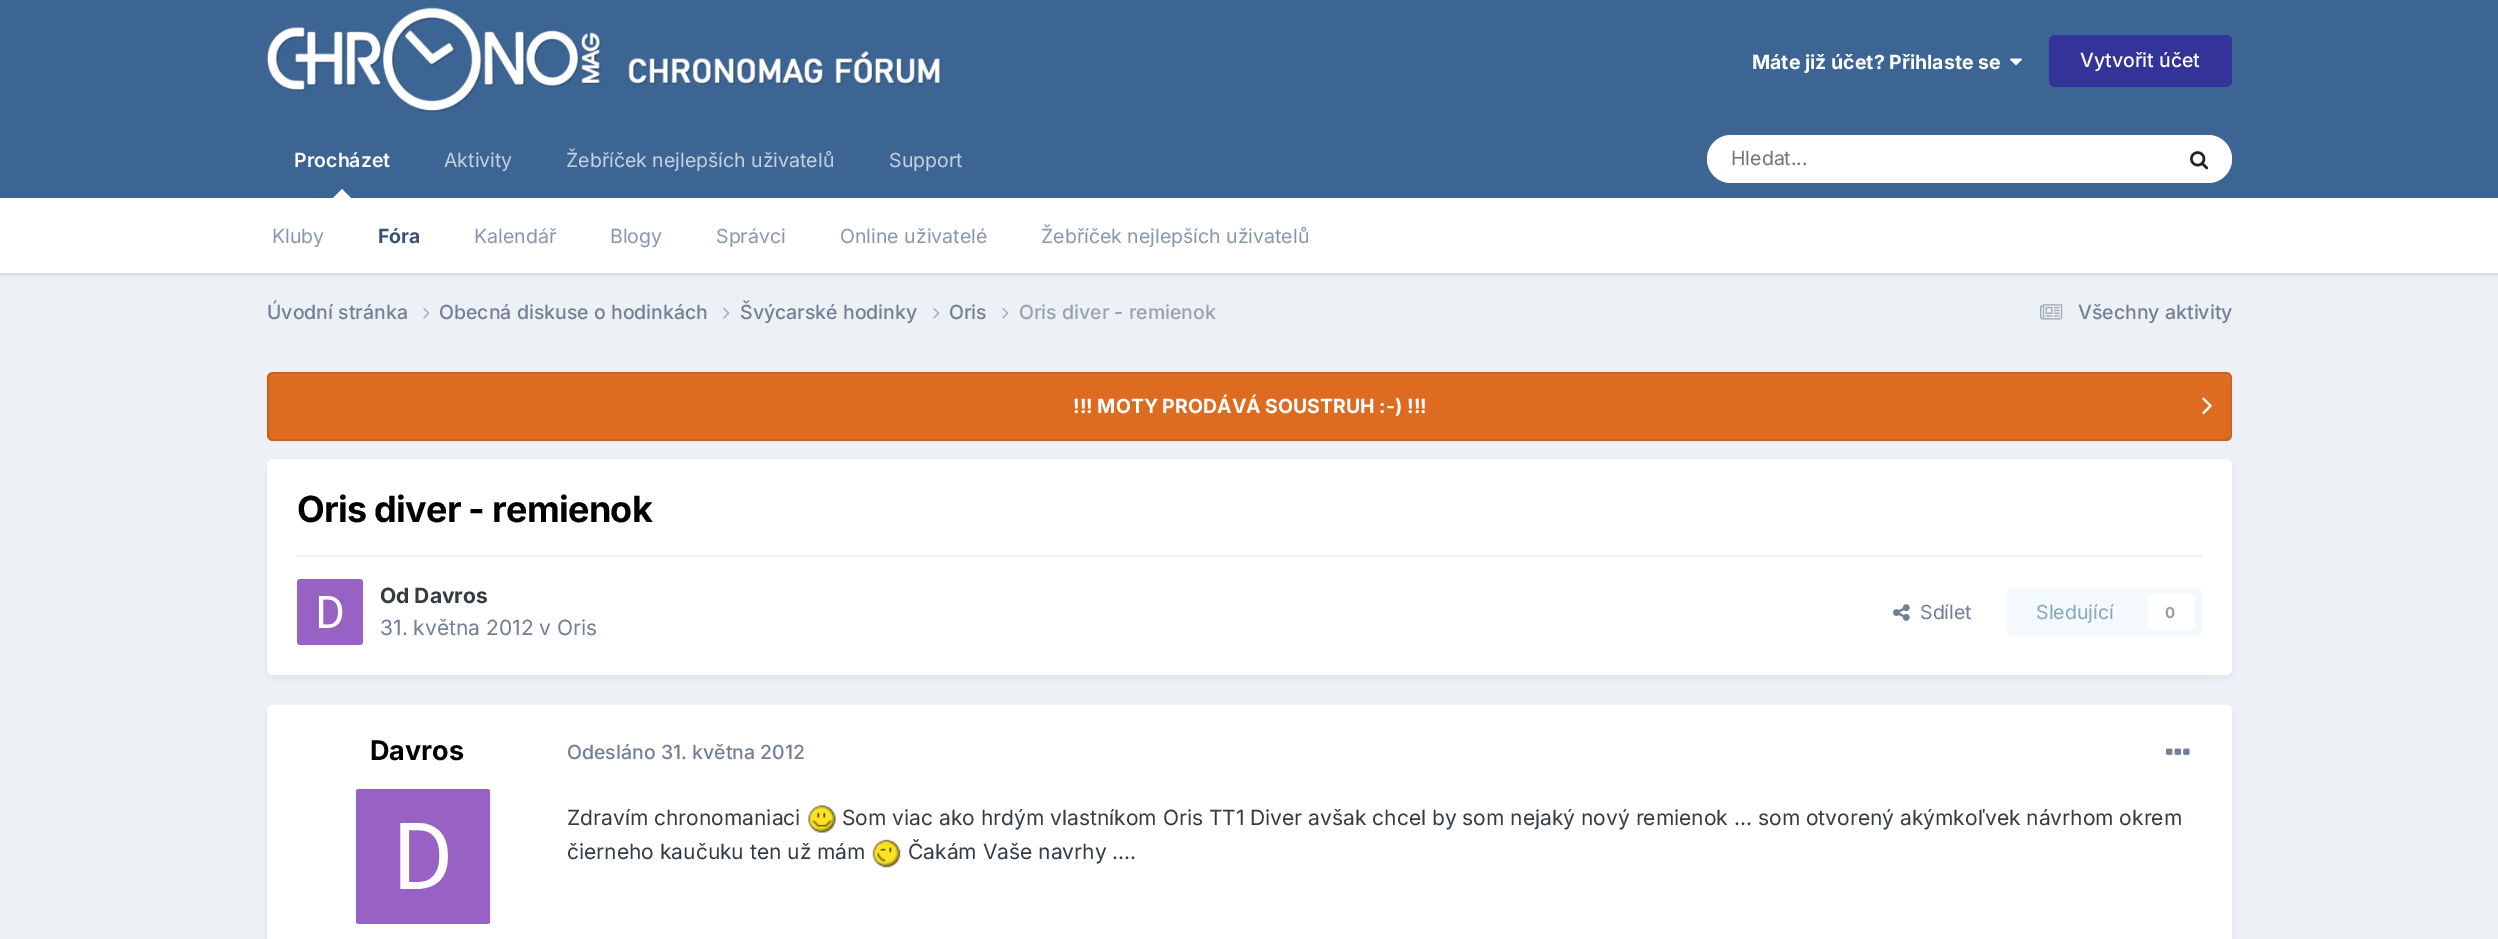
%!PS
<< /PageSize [2498 939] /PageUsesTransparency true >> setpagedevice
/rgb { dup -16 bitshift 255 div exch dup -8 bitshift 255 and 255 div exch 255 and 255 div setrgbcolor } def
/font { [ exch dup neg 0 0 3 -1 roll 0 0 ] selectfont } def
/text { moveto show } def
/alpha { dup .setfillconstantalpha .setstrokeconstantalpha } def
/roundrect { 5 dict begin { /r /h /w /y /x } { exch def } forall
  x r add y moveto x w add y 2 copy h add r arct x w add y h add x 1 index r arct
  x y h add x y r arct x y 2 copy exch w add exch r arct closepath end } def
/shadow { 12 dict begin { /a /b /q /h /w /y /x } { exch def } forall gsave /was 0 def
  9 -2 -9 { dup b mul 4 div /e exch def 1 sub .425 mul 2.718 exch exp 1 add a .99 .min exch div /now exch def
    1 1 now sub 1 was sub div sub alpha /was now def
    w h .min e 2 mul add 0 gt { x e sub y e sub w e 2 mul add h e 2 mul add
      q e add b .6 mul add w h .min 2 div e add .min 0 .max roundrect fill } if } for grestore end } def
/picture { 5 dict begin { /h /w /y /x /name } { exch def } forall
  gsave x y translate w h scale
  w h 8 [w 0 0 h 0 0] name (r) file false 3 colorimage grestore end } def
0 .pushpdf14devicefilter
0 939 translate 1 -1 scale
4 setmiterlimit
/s1 { /Inter-Bold 19.5 font 16#FFFFFF rgb } def
/s2 { /Inter-Medium 19.5 font 16#FFFFFF rgb } def
/s3 { /Inter-Regular 19.5 font 16#C5D1DF rgb } def
/s4 { /Inter-SemiBold 19.5 font 16#FFFFFF rgb } def
/s5 { /Inter-Regular 19.5 font 16#8798AD rgb } def
/s6 { /Inter-Bold 19.5 font 16#375476 rgb } def
/s7 { /Inter-Regular 19.5 font 16#757575 rgb } def
/s8 { /Inter-Medium 19.5 font 16#718096 rgb } def
/s9 { /Inter-Medium 19.5 font 16#96A2B2 rgb } def
/s10 { /Inter-Bold 21 font 16#353C41 rgb } def
/s11 { /Inter-Regular 21 font 16#718096 rgb } def
/s12 { /Inter-Regular 19.5 font 16#718096 rgb } def
/s13 { /Inter-Regular 19.5 font 16#87A6BC rgb } def
/s14 { /Inter-Bold 15 font 16#9A9EA0 rgb } def
/s15 { /Inter-Bold 27 font 16#000000 rgb } def
/s16 { /Inter-Regular 21 font 16#353C41 rgb } def
16#EDF0F4 rgb
0 0 2498 939 rectfill
16#3D6594 rgb
0 0 2498 198 rectfill
(pic1.raw) 267 7 674 105 picture
s1
(Máte již účet? Přihlaste se) 1752 69 text
(pic2.raw) 2010 58 12 8 picture
16#333399 rgb
2049 35 183 52 6 roundrect fill
s2
(Vytvořit účet) 2080 67 text
s3
(Žebříček nejlepších uživatelů) 566 167 text
s4
(Procházet) 294 167 text
16#000000 rgb
0 200 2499 75 0 1.5 0.1 shadow
16#FFFFFF rgb
351 198 moveto 333 198 lineto 342 189 lineto closepath fill
0 198 2498 75 rectfill
s5
(Kluby) 272 243 text
s6
(Fóra) 378 243 text
s5
(Kalendář) 474 243 text
(Blogy) 610 243 text
(Správci) 716 243 text
(Online uživatelé) 840 243 text
(Žebříček nejlepších uživatelů) 1041 243 text
s3
(Aktivity) 444 167 text
(Support) 889 167 text
16#FFFFFF rgb
1707 135 525 48 24 roundrect fill
s7
(Hledat...) 1731 165 text
(pic3.raw) 2190 151 19 19 picture
s8
(Úvodní stránka) 267 319 text
(pic4.raw) 423 308 7 11 picture
(Obecná diskuse o hodinkách) 439 319 text
(pic4.raw) 723 308 7 11 picture
(Švýcarské hodinky) 740 319 text
(pic4.raw) 933 308 7 11 picture
(Oris) 949 319 text
(pic4.raw) 1002 308 7 11 picture
s9
(Oris diver - remienok) 1019 319 text
(pic5.raw) 2040 304 23 16 picture
s8
(Všechny aktivity) 2078 319 text
16#DD6B20 rgb
267 372 1965 69 6 roundrect fill
16#E07A36 rgb
273 375 moveto 2226 375 lineto 2228 375 2230 377 2230 380 curveto 2230 436 lineto 2229 439 lineto 2230 438 2231 436 2231 435 curveto 2231 379 lineto 2231 376 2229 374 2226 374 curveto 274 374 lineto 272 374 271 375 270 376 curveto closepath fill
0.1 alpha
16#000000 rgb
2 setlinewidth
268 373 1963 67 5 roundrect stroke
1 alpha
s1
(!!! MOTY PRODÁVÁ SOUSTRUH :-\) !!!) 1073 413 text
(pic6.raw) 2202 397 10 18 picture
16#375476 rgb
269 464 1962 213 5 3 0.1 shadow
16#FFFFFF rgb
267 459 1965 216 6 roundrect fill
/Inter-Bold 36 font
16#000000 rgb
297 522 moveto -0.75 0 (Oris diver - remienok) ashow
16#EFEFF0 rgb
297 555 1905 2 rectfill
(pic7.raw) 297 579 66 66 picture
s10
(Od Davros) 380 603 text
s11
(31. května 2012 v Oris) 380 635 text
(pic8.raw) 1893 604 17 17 picture
s12
(Sdílet) 1920 619 text
16#F4F9FD rgb
2007 588 195 48 6 roundrect fill
s13
(Sledující) 2036 619 text
16#FFFFFF rgb
2147 594 48 36 6 roundrect fill
s14
(0) 2165 618 text
16#375476 rgb
269 710 1962 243 5 3 0.1 shadow
16#FFFFFF rgb
267 705 1965 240 6 roundrect fill
s15
(Davros) 370 760 text
(pic9.raw) 356 789 135 135 picture
s8
(Odesláno 31. května 2012) 567 759 text
(pic10.raw) 2166 748 24 7 picture
s16
(Zdravím chronomaniaci) 567 825 text
(pic11.raw) 808 805 28 28 picture
(Som viac ako hrdým vlastníkom Oris TT1 Diver avšak chcel by som nejaký nový remienok ... som otvorený akýmkoľvek návrhom okrem) 842 825 text
(čierneho kaučuku ten už mám) 567 859 text
(pic12.raw) 872 839 29 29 picture
(Čakám Vaše navrhy ....) 908 859 text
.poppdf14devicefilter showpage
